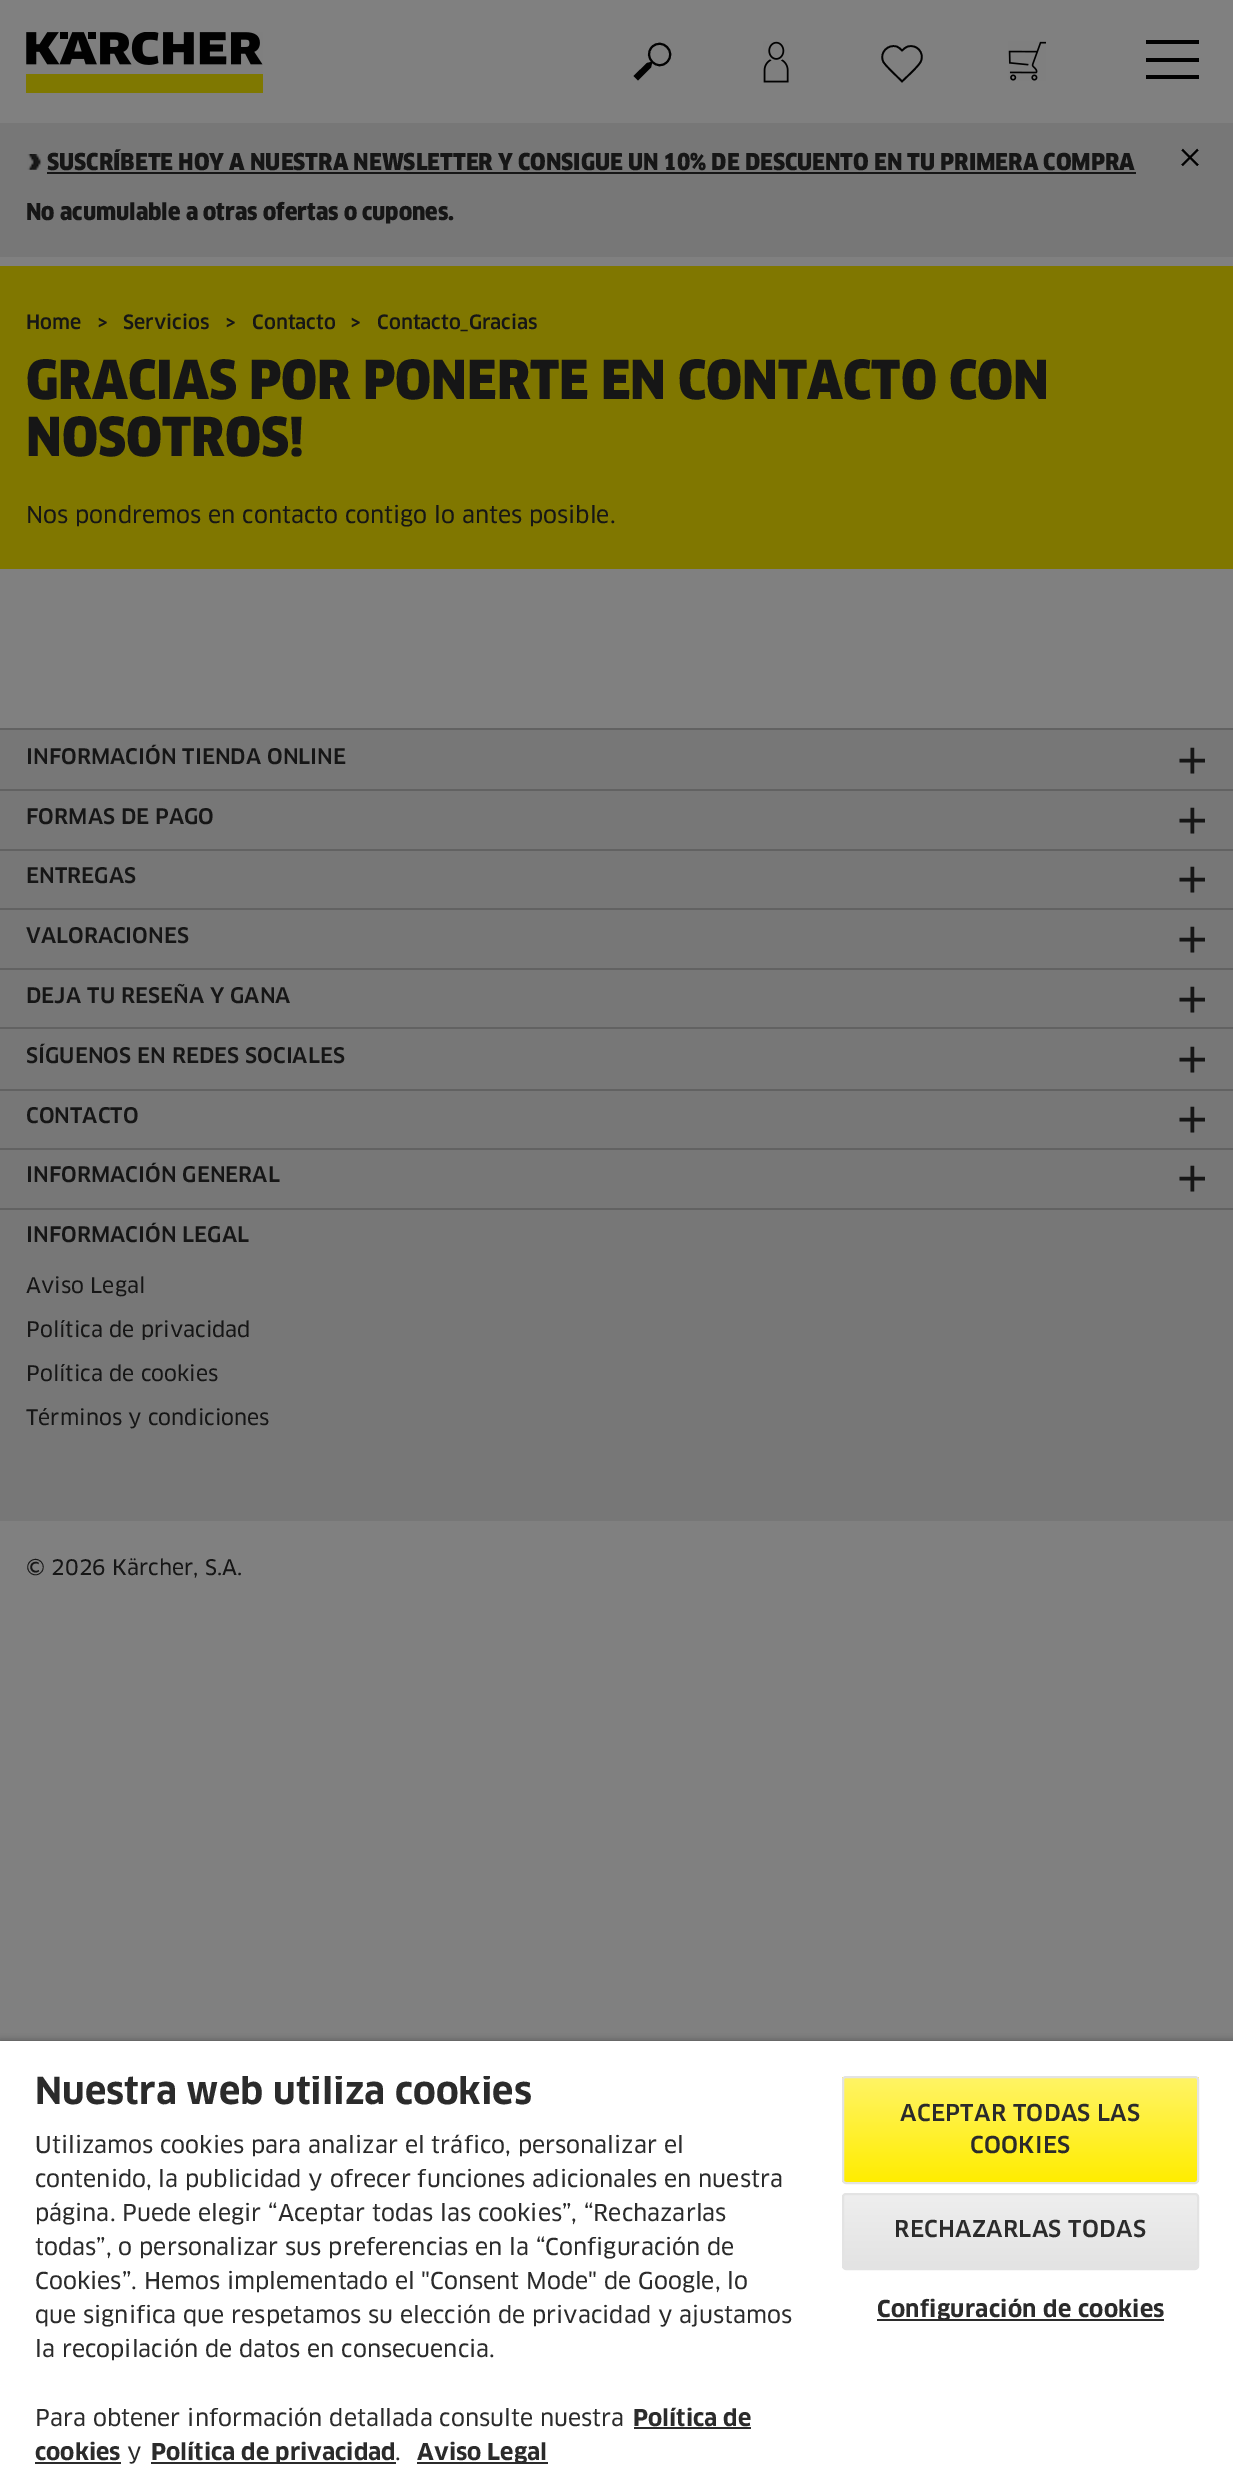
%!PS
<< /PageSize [1233 2471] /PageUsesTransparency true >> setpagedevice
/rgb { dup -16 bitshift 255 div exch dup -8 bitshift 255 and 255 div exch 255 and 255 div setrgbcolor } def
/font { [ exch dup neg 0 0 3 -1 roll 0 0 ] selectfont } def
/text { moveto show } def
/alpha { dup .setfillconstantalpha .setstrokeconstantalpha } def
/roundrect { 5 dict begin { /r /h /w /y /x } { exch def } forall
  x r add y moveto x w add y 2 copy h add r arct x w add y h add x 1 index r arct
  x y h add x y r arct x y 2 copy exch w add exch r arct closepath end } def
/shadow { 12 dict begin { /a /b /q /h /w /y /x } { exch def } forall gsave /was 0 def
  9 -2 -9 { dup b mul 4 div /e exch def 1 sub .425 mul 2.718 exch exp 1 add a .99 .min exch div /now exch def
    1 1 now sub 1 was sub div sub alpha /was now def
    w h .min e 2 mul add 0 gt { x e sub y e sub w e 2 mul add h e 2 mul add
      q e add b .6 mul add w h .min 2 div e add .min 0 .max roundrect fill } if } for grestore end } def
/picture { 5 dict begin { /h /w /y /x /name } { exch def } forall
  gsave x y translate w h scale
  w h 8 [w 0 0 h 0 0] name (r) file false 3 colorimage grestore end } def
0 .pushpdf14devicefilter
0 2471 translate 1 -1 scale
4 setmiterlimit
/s1 { /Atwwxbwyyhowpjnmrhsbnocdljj-Black 22.75 font 16#161616 rgb } def
/s2 { /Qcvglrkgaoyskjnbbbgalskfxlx-Medium 19.25 font 16#161616 rgb } def
/s3 { /Atwwxbwyyhowpjnmrhsbnocdljj-Black 52.5 font 16#161616 rgb } def
/s4 { /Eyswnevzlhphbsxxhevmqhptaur-Regular 22.75 font 16#161616 rgb } def
/s5 { /Qcvglrkgaoyskjnbbbgalskfxlx-Medium 21 font 16#161616 rgb } def
/s6 { /LiberationSans-Regular 52.5 font 16#161616 rgb } def
/s7 { /Eyswnevzlhphbsxxhevmqhptaur-Regular 21 font 16#161616 rgb } def
/s8 { /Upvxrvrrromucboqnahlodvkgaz-Bold 36.4 font 16#2B2B2B rgb } def
/s9 { /Eyswnevzlhphbsxxhevmqhptaur-Regular 22.75 font 16#2B2B2B rgb } def
/s10 { /Upvxrvrrromucboqnahlodvkgaz-Bold 22.75 font 16#2B2B2B rgb } def
16#808080 rgb
0 0 1233 2471 rectfill
(pic1.raw) 26 32 237 61 picture
16#020202 rgb
2 setlinewidth
652 47 moveto 642.5 57 657.5 72 667 62 curveto 677 52 662 37 652 47 curveto closepath stroke
633.5 76 moveto 647 63 lineto 652.5 61.5 lineto 651 67.5 lineto 638 80.5 lineto fill
(pic2.raw) 763 41 26 42 picture
1.7 setlinewidth
902 81.5 moveto 898 77 885 66 883 61 curveto 879.5 52.5 888 44 896.5 46.5 curveto 898.5 47 900.5 49 902 50.5 curveto 904 49 905.5 47 908 46.5 curveto 916.5 44 924.5 52.5 921 61 curveto 919.5 65.5 906 77.5 902 81.5 curveto closepath stroke
(pic3.raw) 1008 41 38 40 picture
1146 40 53 4 rectfill
1146 58 53 4 rectfill
1146 75 53 4 rectfill
16#777777 rgb
0 123 1233 134 rectfill
(pic4.raw) 27 154 15 16 picture
s1
(SUSCRÍBETE HOY A NUESTRA NEWSLETTER Y CONSIGUE UN 10% DE DESCUENTO EN TU PRIMERA COMPRA) 47 170 text
47 172 1089 2 rectfill
(No acumulable a otras ofertas o cupones.) 26 220 text
(pic5.raw) 1181 148 18 18 picture
16#807700 rgb
0 266 1233 303 rectfill
s2
(Home) 26 329 text
(>) 97 329 text
(Servicios) 123 329 text
(>) 225 329 text
(Contacto) 252 329 text
(>) 350 329 text
(Contacto_Gracias) 377 329 text
s3
(GRACIAS POR PONERTE EN CONTACTO CON) 26 399 text
(NOSOTROS!) 26 456 text
s4
(Nos pondremos en contacto contigo lo antes posible.) 26 523 text
16#777777 rgb
0 730 1233 791 rectfill
16#626262 rgb
0 728 1233 2 rectfill
s5
(INFORMACIÓN TIENDA ONLINE) 26 764 text
s6
(+) 1177 778 text
16#626262 rgb
0 789 1233 2 rectfill
s5
(FORMAS DE PAGO) 26 824 text
s6
(+) 1177 838 text
16#626262 rgb
0 849 1233 2 rectfill
s5
(ENTREGAS) 26 883 text
s6
(+) 1177 897 text
16#626262 rgb
0 908 1233 2 rectfill
s5
(VALORACIONES) 26 943 text
s6
(+) 1177 957 text
16#626262 rgb
0 968 1233 2 rectfill
s5
(DEJA TU RESEÑA Y GANA) 26 1003 text
s6
(+) 1177 1017 text
16#626262 rgb
0 1027 1233 2 rectfill
s5
(SÍGUENOS EN REDES SOCIALES) 26 1063 text
s6
(+) 1177 1077 text
16#626262 rgb
0 1089 1233 2 rectfill
s5
(CONTACTO) 26 1123 text
s6
(+) 1177 1137 text
16#626262 rgb
0 1148 1233 2 rectfill
s5
(INFORMACIÓN GENERAL) 26 1182 text
s6
(+) 1177 1196 text
16#626262 rgb
0 1208 1233 2 rectfill
s5
(INFORMACIÓN LEGAL) 26 1242 text
s7
(Aviso Legal) 26 1293 text
(Política de privacidad) 26 1337 text
(Política de cookies) 26 1381 text
(Términos y condiciones) 26 1425 text
(© 2026 Kärcher, S.A.) 26 1575 text
16#000000 rgb
0 2041 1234 430 0 3.5 0.35 shadow
16#FFFFFF rgb
0 2041 1233 430 rectfill
gsave
35 2076 760 395 rectclip
s8
(Nuestra web utiliza cookies) 35 2104 text
grestore
s9
(Utilizamos cookies para analizar el tráfico, personalizar el) 35 2153 text
(contenido, la publicidad y ofrecer funciones adicionales en nuestra) 35 2187 text
(página. Puede elegir “Aceptar todas las cookies”, “Rechazarlas) 35 2221 text
(todas”, o personalizar sus preferencias en la “Configuración de) 35 2255 text
(Cookies”. Hemos implementado el "Consent Mode" de Google, lo) 35 2289 text
(que significa que respetamos su elección de privacidad y ajustamos) 35 2323 text
(la recopilación de datos en consecuencia.) 35 2357 text
(Para obtener información detallada consulte nuestra) 35 2426 text
s10
(Política de) 633 2426 text
634 2427 117 2 rectfill
(cookies) 35 2460 text
35 2462 86 2 rectfill
s9
(y) 127 2460 text
151 2462 245 2 rectfill
s10
(Política de privacidad) 151 2460 text
s9
(.) 395 2460 text
417 2462 131 2 rectfill
s10
(Aviso Legal) 417 2460 text
gsave
842 2076 357 108 4 roundrect clip newpath
gsave 842 2077 moveto 1199 2077 lineto 1199 2182 lineto 842 2182 lineto closepath clip newpath
<< /ShadingType 2 /ColorSpace /DeviceRGB /Coords [1020 2182 1020 2077] /Extend [true true] /Function << /FunctionType 2 /Domain [0 1] /C0 [1 0.929 0] /C1 [1 0.957 0.4] /N 1 >> >> shfill grestore
grestore
16#E3E3E3 rgb
2 setlinewidth
843 2077 355 106 3 roundrect stroke
/Qcvglrkgaoyskjnbbbgalskfxlx-Medium 22.75 font
16#2B2B2B rgb
900 2121 moveto 0.25 0 (ACEPTAR TODAS LAS) ashow
970 2153 moveto 0.25 0 (COOKIES) ashow
gsave
842 2193 357 77 4 roundrect clip newpath
gsave 842 2195 moveto 1199 2195 lineto 1199 2268 lineto 842 2268 lineto closepath clip newpath
<< /ShadingType 2 /ColorSpace /DeviceRGB /Coords [844 2268 844 2195] /Extend [true true] /Function << /FunctionType 2 /Domain [0 1] /C0 [0.89 0.89 0.89] /C1 [0.933 0.933 0.933] /N 1 >> >> shfill grestore
grestore
16#E3E3E3 rgb
843 2194 355 75 3 roundrect stroke
16#2B2B2B rgb
894 2237 moveto 0.25 0 (RECHAZARLAS TODAS) ashow
877 2319 287 2 rectfill
/Upvxrvrrromucboqnahlodvkgaz-Bold 22.75 font
877 2317 moveto 0.25 0 (Configuración de cookies) ashow
.poppdf14devicefilter showpage
